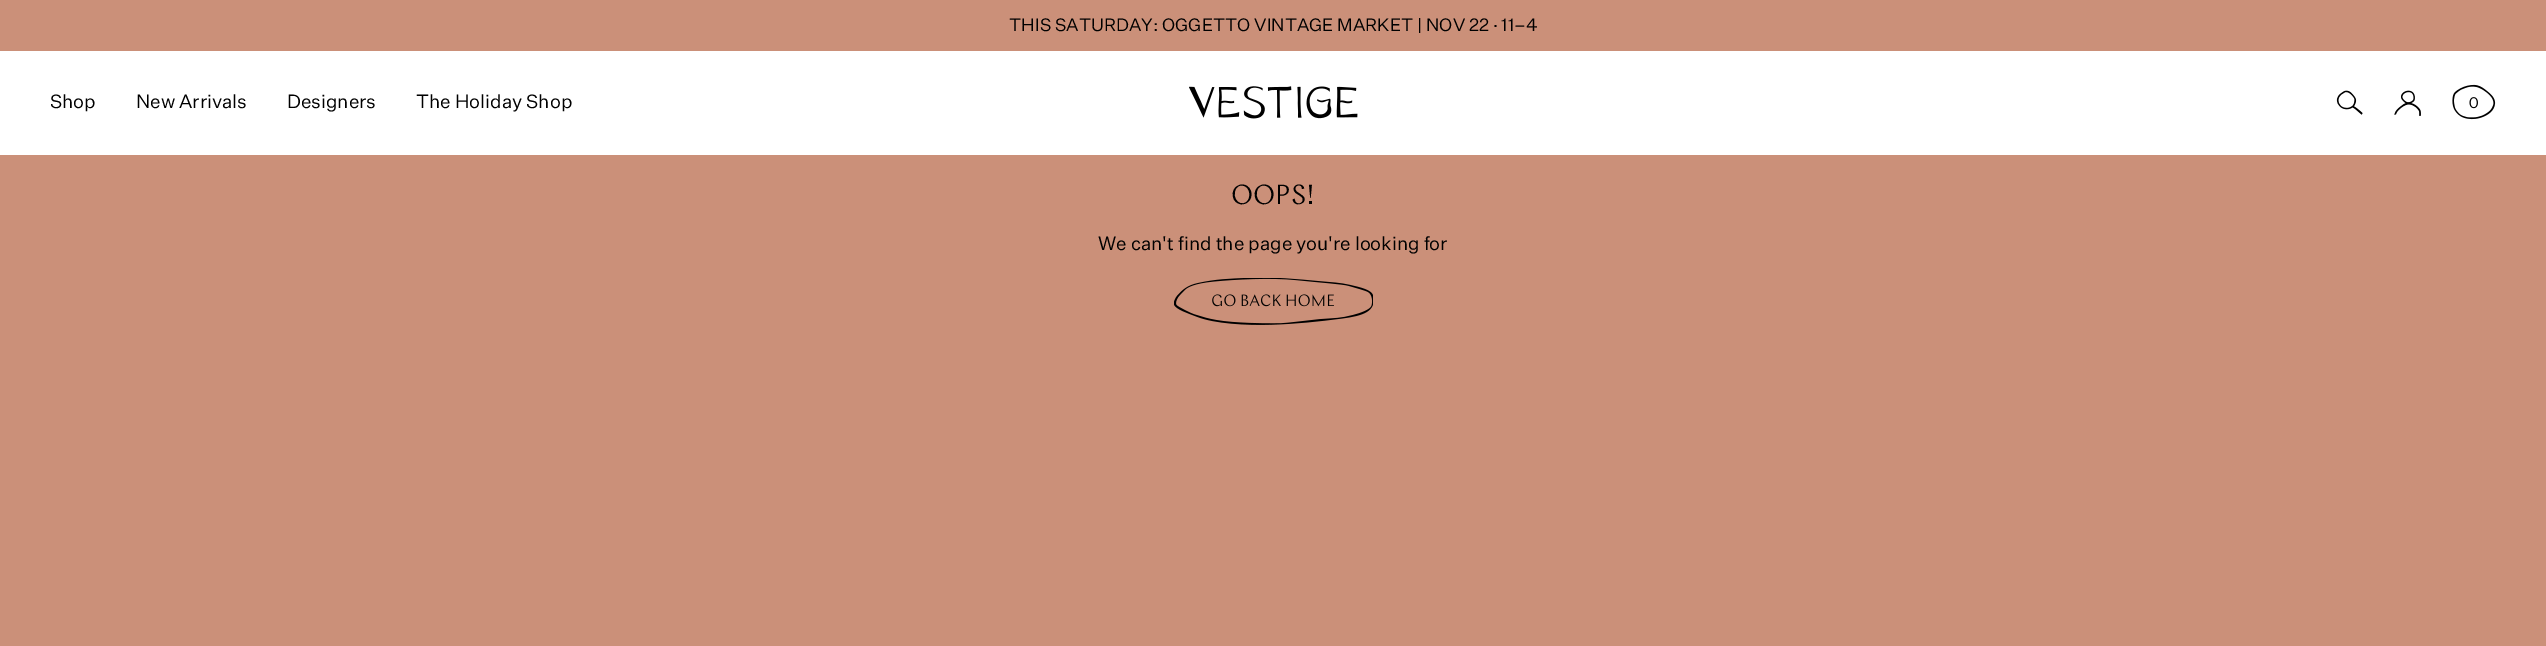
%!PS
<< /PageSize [2546 646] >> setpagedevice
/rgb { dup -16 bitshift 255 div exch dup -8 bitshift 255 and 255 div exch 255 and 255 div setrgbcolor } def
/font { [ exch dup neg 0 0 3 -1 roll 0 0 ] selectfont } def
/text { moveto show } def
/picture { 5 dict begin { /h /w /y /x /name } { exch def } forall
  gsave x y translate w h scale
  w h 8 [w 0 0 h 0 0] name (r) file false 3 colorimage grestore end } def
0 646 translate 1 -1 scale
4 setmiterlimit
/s1 { /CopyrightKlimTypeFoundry-Regular 17.5 font 16#000000 rgb } def
/s2 { /CopyrightKlimTypeFoundry-Regular 18.75 font 16#000000 rgb } def
/s3 { /CopyrightKlimTypeFoundry-Regular 15 font 16#000000 rgb } def
/s4 { /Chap-Light 27.5 font 16#000000 rgb } def
/s5 { /Chap-Light 16.25 font 16#000000 rgb } def
16#CB9079 rgb
0 0 2546 646 rectfill
16#FFFFFF rgb
0 51 2546 104 rectfill
s1
(THIS SATURDAY: OGGETTO VINTAGE MARKET | NOV 22 · 11–4) 1009 31 text
s2
(Shop) 50 108 text
(New Arrivals) 136 108 text
(Designers) 287 108 text
(The Holiday Shop) 416 108 text
(pic1.raw) 1189 86 169 33 picture
(pic2.raw) 2336 90 27 25 picture
(pic3.raw) 2394 90 27 26 picture
s3
(0) 2469 108 text
(pic4.raw) 2452 84 44 36 picture
s4
(OOPS!) 1231 204 text
s2
(We can't find the page you're looking for) 1098 250 text
s5
(GO BACK HOME) 1211 306 text
(pic5.raw) 1174 278 199 47 picture
showpage
